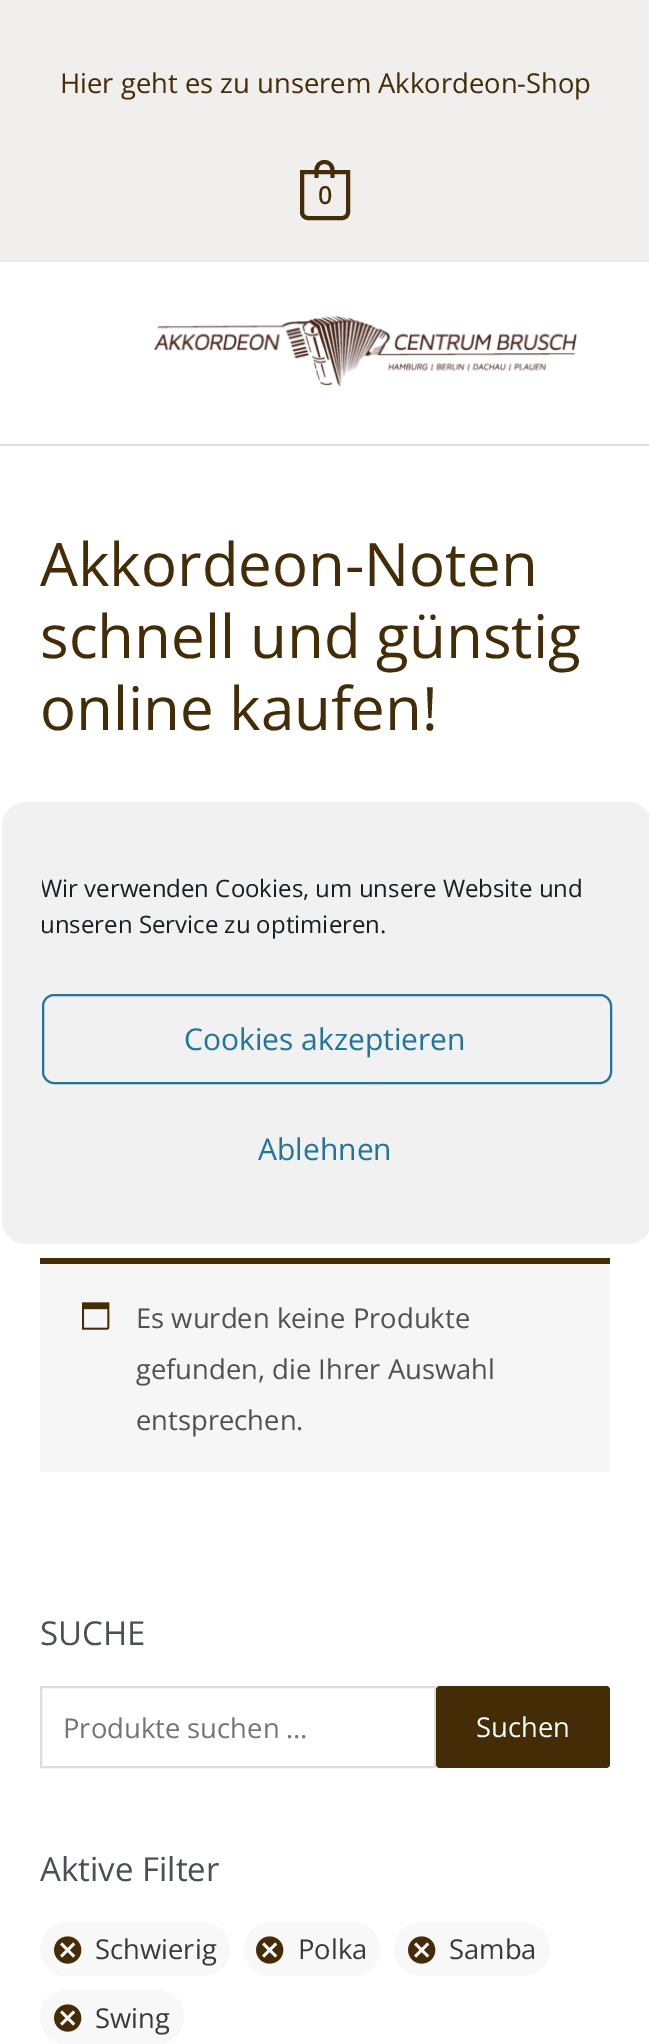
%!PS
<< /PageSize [649 2044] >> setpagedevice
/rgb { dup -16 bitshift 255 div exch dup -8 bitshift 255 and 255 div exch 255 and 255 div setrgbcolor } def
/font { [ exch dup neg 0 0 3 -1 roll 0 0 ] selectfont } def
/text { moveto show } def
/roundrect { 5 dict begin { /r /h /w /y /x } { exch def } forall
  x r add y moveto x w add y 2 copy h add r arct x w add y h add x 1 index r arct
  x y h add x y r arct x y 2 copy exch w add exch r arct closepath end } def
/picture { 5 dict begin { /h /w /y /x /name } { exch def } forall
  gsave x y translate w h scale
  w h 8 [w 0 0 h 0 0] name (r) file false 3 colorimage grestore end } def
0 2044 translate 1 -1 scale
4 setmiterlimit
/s1 { /OpenSans-Regular 27.4 font 16#442C07 rgb } def
/s2 { /OpenSans-Bold 24 font 16#442C07 rgb } def
/s3 { /OpenSans-Regular 60 font 16#442C07 rgb } def
/s4 { /OpenSans-Regular 27.4 font 16#515151 rgb } def
/s5 { /OpenSans-Regular 33 font 16#4B4F58 rgb } def
/s6 { /OpenSans-Regular 27.4 font 16#757575 rgb } def
/s7 { /OpenSans-Regular 27.4 font 16#FFFFFF rgb } def
/s8 { /OpenSans-Regular 27.4 font 16#3A3A3A rgb } def
/s9 { /OpenSans-Regular 24 font 16#191E23 rgb } def
/s10 { /OpenSans-Regular 30 font 16#21759B rgb } def
16#FFFFFF rgb
0 0 649 2044 rectfill
16#F1EFED rgb
0 0 649 260 rectfill
16#EAEAEA rgb
0 260 649 2 rectfill
s1
(Hier geht es zu unserem Akkordeon-Shop) 60 93 text
4 setlinewidth
302 172 moveto 348 172 lineto 348 212 lineto 348 215.5 345.5 218 342 218 curveto 308 218 lineto 304.5 218 302 215.5 302 212 curveto closepath stroke
324.5 160 moveto 330 160 334.5 164.5 334.5 170 curveto 334.5 178 lineto 314.5 178 lineto 314.5 170 lineto 314.5 164.5 319 160 324.5 160 curveto closepath 324.5 164 moveto 332 164 330.5 173 330.5 178 curveto 318.5 178 lineto 318.5 173 317 164 324.5 164 curveto closepath eofill
s2
(0) 318 204 text
16#DDDDDD rgb
0 444 649 2 rectfill
(pic1.raw) 154 316 423 71 picture
s3
(Akkordeon-Noten) 40 586 text
(schnell und günstig) 40 658 text
(online kaufen!) 40 730 text
16#F7F6F7 rgb
40 1264 570 208 rectfill
16#442C07 rgb
40 1258 570 6 rectfill
(pic2.raw) 82 1302 28 28 picture
s4
(Es wurden keine Produkte) 136 1328 text
(gefunden, die Ihrer Auswahl) 136 1379 text
(entsprechen.) 136 1430 text
s5
(SUCHE) 40 1645 text
16#DDDDDD rgb
2 setlinewidth
41 1687 394 80 rectstroke
s6
(Produkte suchen …) 63 1738 text
16#442C07 rgb
436 1686 174 82 4 roundrect fill
s7
(Suchen) 476 1737 text
s5
(Aktive Filter) 40 1881 text
16#F8F8F8 rgb
40 1922 190 54 27 roundrect fill
(pic3.raw) 54 1936 28 28 picture
s8
(Schwierig) 95 1959 text
16#F8F8F8 rgb
244 1922 136 54 27 roundrect fill
(pic3.raw) 256 1936 28 28 picture
s8
(Polka) 298 1959 text
16#F8F8F8 rgb
394 1922 156 54 27 roundrect fill
(pic3.raw) 408 1936 28 28 picture
s8
(Samba) 449 1959 text
16#F8F8F8 rgb
40 1990 144 54 27 roundrect fill
(pic3.raw) 54 2004 28 28 picture
s8
(Swing) 95 2028 text
16#F1F1F1 rgb
2 802 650 442 24 roundrect fill
gsave
42 872 570 82 rectclip
s9
(Wir verwenden Cookies, um unsere Website und) 40 897 text
(unseren Service zu optimieren.) 40 933 text
grestore
16#21759B rgb
43 995 568 88 11 roundrect stroke
s10
(Cookies akzeptieren) 184 1050 text
(Ablehnen) 258 1160 text
showpage
